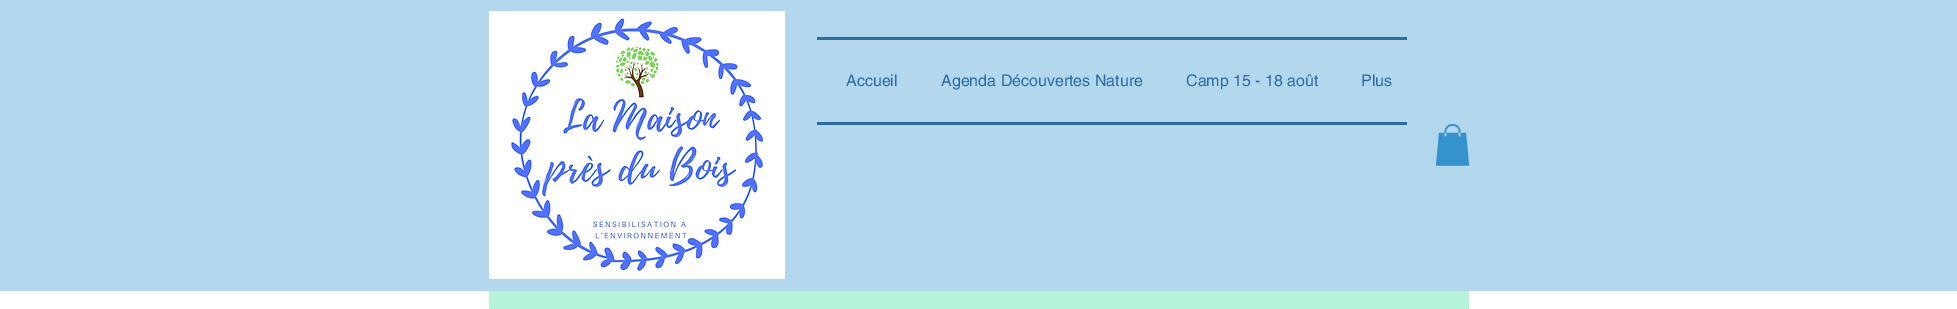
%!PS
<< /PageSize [1957 309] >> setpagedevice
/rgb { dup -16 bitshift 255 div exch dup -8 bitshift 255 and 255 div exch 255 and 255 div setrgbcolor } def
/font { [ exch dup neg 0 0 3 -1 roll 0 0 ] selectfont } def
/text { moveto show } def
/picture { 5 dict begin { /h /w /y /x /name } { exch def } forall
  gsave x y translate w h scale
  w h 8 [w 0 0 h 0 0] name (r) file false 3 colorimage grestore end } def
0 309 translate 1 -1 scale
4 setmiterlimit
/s1 { /helvetica-Regular 16 font 16#2B6CA3 rgb } def
16#FFFFFF rgb
0 0 1957 309 rectfill
16#B3D7ED rgb
0 0 1957 291 rectfill
(pic1.raw) 489 11 296 268 picture
16#2B6CA3 rgb
817 37 590 3 rectfill
817 122 590 3 rectfill
s1
(Accueil) 846 86 text
(Agenda Découvertes Nature) 941 86 text
(Camp 15 - 18 août) 1186 86 text
(Plus) 1361 86 text
(pic2.raw) 1435 124 35 42 picture
16#B5F3DA rgb
489 291 980 18 rectfill
showpage
